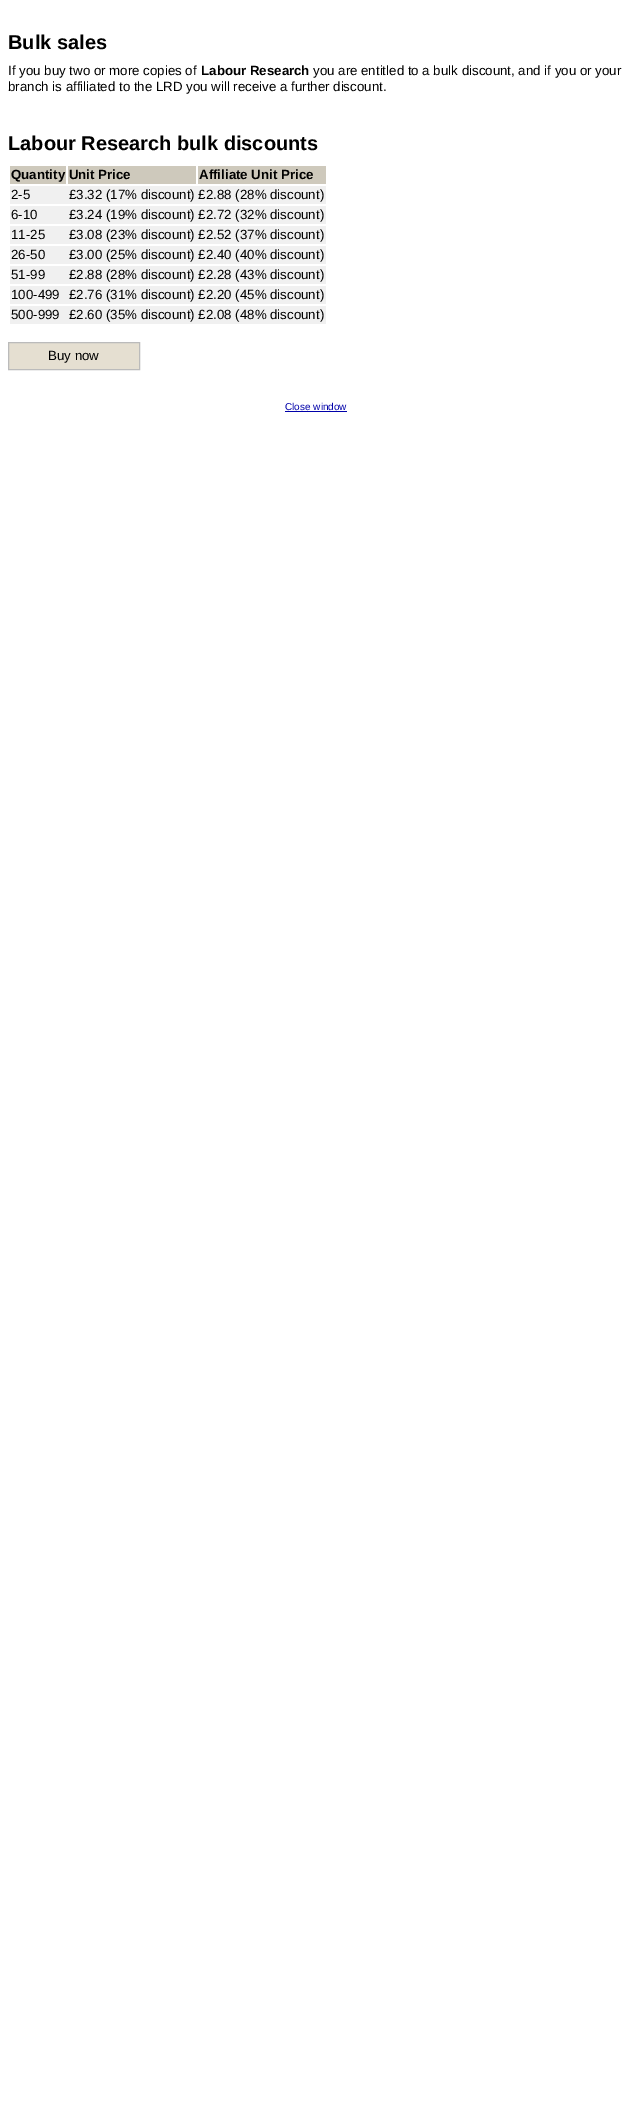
%!PS
<< /PageSize [632 2124] >> setpagedevice
/rgb { dup -16 bitshift 255 div exch dup -8 bitshift 255 and 255 div exch 255 and 255 div setrgbcolor } def
/font { [ exch dup neg 0 0 3 -1 roll 0 0 ] selectfont } def
/text { moveto show } def
0 2124 translate 1 -1 scale
4 setmiterlimit
/s1 { /LiberationSans-Bold 20 font 16#000000 rgb } def
/s2 { /LiberationSans-Regular 13.3 font 16#000000 rgb } def
/s3 { /LiberationSans-Bold 13.3 font 16#000000 rgb } def
/s4 { /LiberationSans-Regular 10 font 16#0000AA rgb } def
16#FFFFFF rgb
0 0 632 2124 rectfill
s1
(Bulk sales) 8 49 text
s2
(If you buy two or more copies of) 8 75 text
s3
(Labour Research) 201 75 text
s2
(you are entitled to a bulk discount, and if you or your) 313 75 text
(branch is affiliated to the LRD you will receive a further discount.) 8 91 text
s1
(Labour Research bulk discounts) 8 150 text
16#CEC9BC rgb
68 166 128 18 rectfill
10 166 56 18 rectfill
s3
(Quantity Unit Price) 11 179 text
16#CEC9BC rgb
198 166 128 18 rectfill
s3
(Affiliate Unit Price) 199 179 text
16#F0F0F0 rgb
10 186 316 18 rectfill
s2
(2-5) 11 199 text
(£3.32 \(17% discount\) £2.88 \(28% discount\)) 69 199 text
16#F0F0F0 rgb
10 206 316 18 rectfill
s2
(6-10) 11 219 text
(£3.24 \(19% discount\) £2.72 \(32% discount\)) 69 219 text
16#F0F0F0 rgb
10 226 316 18 rectfill
s2
(11-25) 11 239 text
(£3.08 \(23% discount\) £2.52 \(37% discount\)) 69 239 text
16#F0F0F0 rgb
10 246 316 18 rectfill
s2
(26-50) 11 259 text
(£3.00 \(25% discount\) £2.40 \(40% discount\)) 69 259 text
16#F0F0F0 rgb
10 266 316 18 rectfill
s2
(51-99) 11 279 text
(£2.88 \(28% discount\) £2.28 \(43% discount\)) 69 279 text
16#F0F0F0 rgb
10 286 316 18 rectfill
s2
(100-499) 11 299 text
(£2.76 \(31% discount\) £2.20 \(45% discount\)) 69 299 text
16#F0F0F0 rgb
10 306 316 18 rectfill
s2
(500-999) 11 319 text
(£2.60 \(35% discount\) £2.08 \(48% discount\)) 69 319 text
16#E5DFD1 rgb
8.5 342.5 moveto 139.5 342.5 lineto 139.5 369.5 lineto 8.5 369.5 lineto closepath gsave fill grestore
16#BBBBBB rgb
stroke
s2
(Buy now) 48 360 text
s4
(Close window) 285 410 text
285 411 62 1 rectfill
showpage
